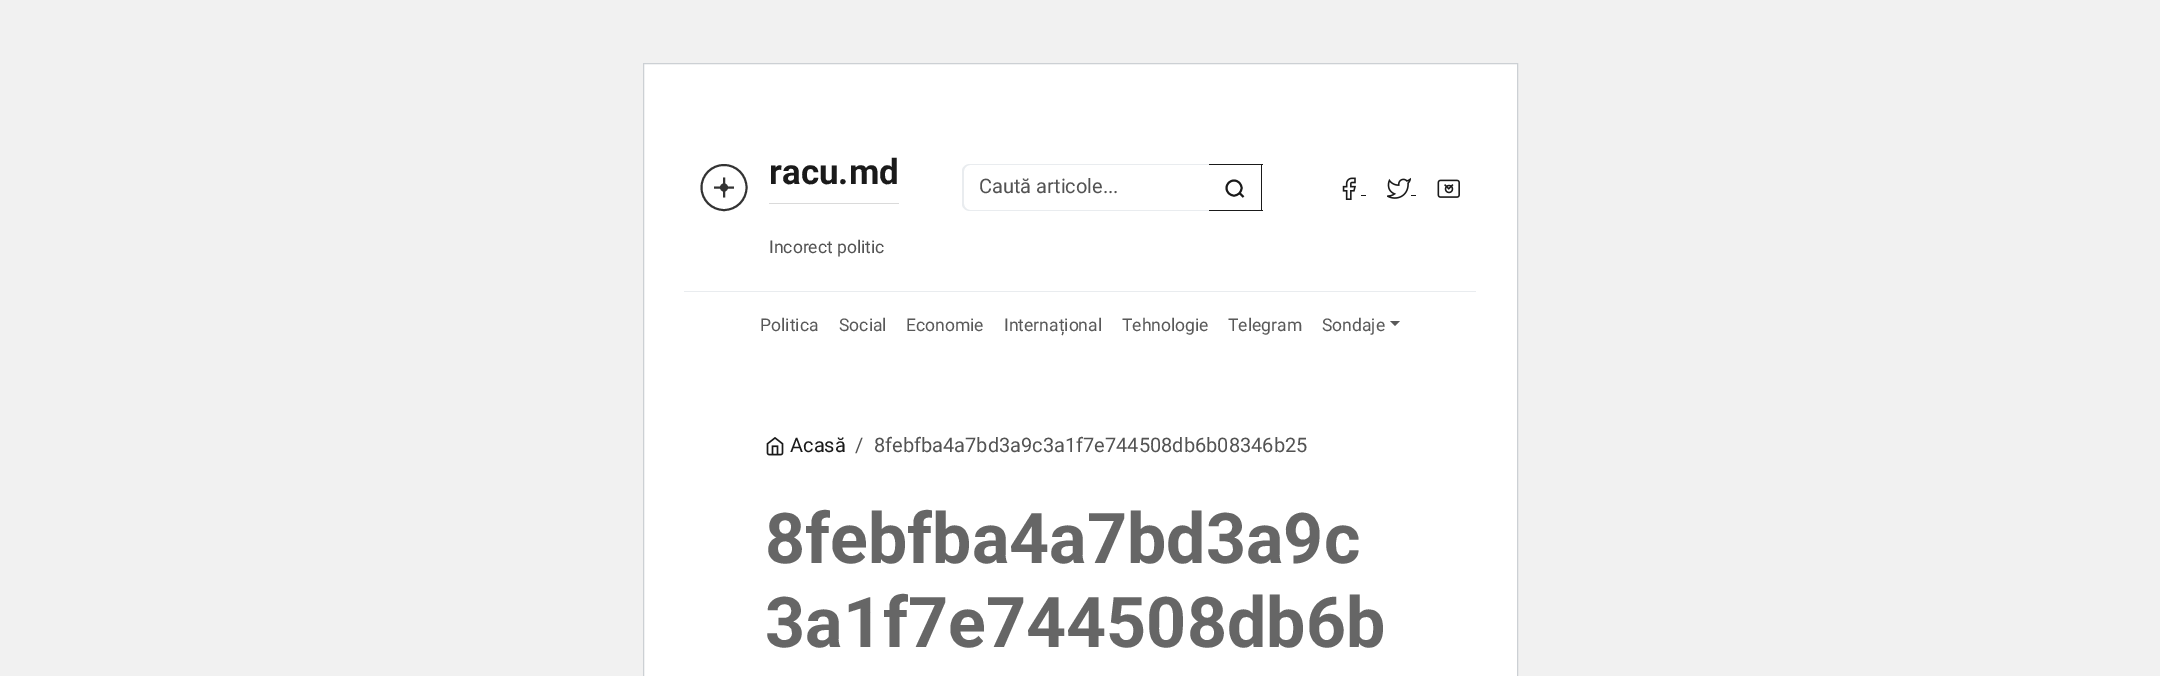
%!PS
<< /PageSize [2160 676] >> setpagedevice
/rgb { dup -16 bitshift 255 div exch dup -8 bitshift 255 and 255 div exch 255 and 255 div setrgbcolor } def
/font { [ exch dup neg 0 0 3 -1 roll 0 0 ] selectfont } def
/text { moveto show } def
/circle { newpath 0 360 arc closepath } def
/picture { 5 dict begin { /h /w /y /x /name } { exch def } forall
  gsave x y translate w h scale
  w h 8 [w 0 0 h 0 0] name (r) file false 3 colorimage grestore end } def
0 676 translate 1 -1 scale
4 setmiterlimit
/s1 { /Roboto-Bold 35 font 16#1A1A1A rgb } def
/s2 { /Roboto-Regular 17.5 font 16#535353 rgb } def
/s3 { /Roboto-Regular 20 font 16#535353 rgb } def
/s4 { /Roboto-Regular 17.5 font 16#595959 rgb } def
/s5 { /Roboto-Regular 20 font 16#1A1A1A rgb } def
/s6 { /Roboto-Bold 70 font 16#666666 rgb } def
16#F1F1F1 rgb
0 0 2160 676 rectfill
16#FFFFFF rgb
643.5 63.5 moveto 1517.5 63.5 lineto 1517.5 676.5 lineto 643.5 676.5 lineto closepath gsave fill grestore
16#CCD0D4 rgb
stroke
16#333333 rgb
1.9 setlinewidth
724 187.5 22.5 circle stroke
714 187.5 moveto 734 187.5 lineto 724 177.5 moveto 724 197.5 lineto stroke
724 187.5 4 circle fill
16#DADADA rgb
769 203 130 1 rectfill
s1
(racu.md) 769 184 text
s2
(Incorect politic) 769 253 text
16#E9ECEF rgb
970 164 moveto 1210 164 lineto 1210 211 lineto 970 211 lineto 966 211 962 208 962 204 curveto 962 171 lineto 962 167 966 164 970 164 curveto closepath 970 165 moveto 1210 165 lineto 1210 210 lineto 970 210 lineto 967 210 964 207 964 204 curveto 964 171 lineto 964 168 967 165 970 165 curveto closepath eofill
s3
(Caută articole...) 979 193 text
16#1A1A1A rgb
1209 164 54 1 rectfill
1261 164 1 47 rectfill
1209 210 54 1 rectfill
1234 188 7.5 circle stroke
1243.5 197 moveto 1239.5 193 lineto stroke
(pic1.raw) 1342 177 14 23 picture
1361 195 5 1 rectfill
(pic2.raw) 1387 177 24 22 picture
1411 195 5 1 rectfill
(pic3.raw) 1437 179 23 19 picture
16#E9ECEF rgb
684 291 792 1 rectfill
s4
(Politica) 760 331 text
(Social) 839 331 text
(Economie) 906 331 text
(Internațional) 1004 331 text
(Tehnologie) 1122 331 text
(Telegram) 1228 331 text
(Sondaje) 1322 331 text
1390 321 moveto 1400 321 lineto 1395 326 lineto closepath fill
(pic4.raw) 766 437 18 19 picture
s5
(Acasă) 790 452 text
s3
(/) 855 452 text
(8febfba4a7bd3a9c3a1f7e744508db6b08346b25) 874 452 text
s6
(8febfba4a7bd3a9c) 765 563 text
(3a1f7e744508db6b) 765 647 text
showpage
